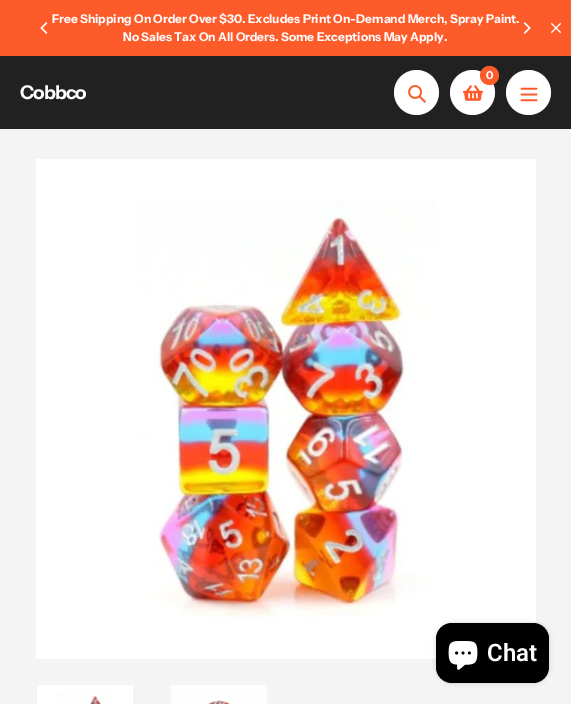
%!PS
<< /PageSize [571 704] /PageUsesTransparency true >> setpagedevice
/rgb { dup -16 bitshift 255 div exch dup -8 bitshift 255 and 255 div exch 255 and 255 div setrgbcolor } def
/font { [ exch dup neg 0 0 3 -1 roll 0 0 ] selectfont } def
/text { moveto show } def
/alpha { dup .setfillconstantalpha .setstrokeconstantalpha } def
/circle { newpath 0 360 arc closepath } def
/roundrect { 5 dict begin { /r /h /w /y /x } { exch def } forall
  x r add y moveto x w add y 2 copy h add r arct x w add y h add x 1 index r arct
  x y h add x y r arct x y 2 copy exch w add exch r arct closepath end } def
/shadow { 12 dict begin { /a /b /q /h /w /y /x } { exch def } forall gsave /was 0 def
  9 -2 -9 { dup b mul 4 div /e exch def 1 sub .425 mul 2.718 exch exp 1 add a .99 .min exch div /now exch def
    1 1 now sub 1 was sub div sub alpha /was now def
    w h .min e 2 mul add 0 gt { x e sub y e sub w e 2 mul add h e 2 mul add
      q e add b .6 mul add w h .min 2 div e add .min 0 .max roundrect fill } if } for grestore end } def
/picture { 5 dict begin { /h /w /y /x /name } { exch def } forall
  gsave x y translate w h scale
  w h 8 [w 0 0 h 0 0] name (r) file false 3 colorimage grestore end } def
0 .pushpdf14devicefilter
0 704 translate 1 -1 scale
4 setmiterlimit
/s1 { /InstrumentSans-Bold 12 font 16#FFFFFF rgb } def
/s2 { /InstrumentSans-Bold 11 font 16#FFFFFF rgb } def
/s3 { /Roboto-SemiBold 24 font 16#FFFFFF rgb } def
16#F4F4F4 rgb
0 0 571 704 rectfill
16#FD5B2A rgb
0 0 571 56 rectfill
(pic1.raw) 40 22 8 12 picture
s1
(Free Shipping On Order Over $30. Excludes Print On-Demand Merch, Spray Paint.) 52 23 text
(No Sales Tax On All Orders. Some Exceptions May Apply.) 123 41 text
(pic2.raw) 523 22 8 12 picture
(pic3.raw) 551 23 10 10 picture
16#212121 rgb
0 56 571 73 rectfill
16#FFFFFF rgb
416.5 92.5 22.5 circle fill
(pic4.raw) 408 85 18 18 picture
472.5 92.5 22.5 circle fill
16#FD5B2A rgb
489.5 75.5 9.5 circle fill
s2
(0) 486 79 text
(pic5.raw) 463 85 20 16 picture
528.5 92.5 22.5 circle fill
(pic6.raw) 520 87 18 15 picture
/InstrumentSans-Bold 19 font
20 99 moveto -1 0 (Cobbco) ashow
(pic7.raw) 36 159 500 500 picture
(pic8.raw) 37 685 96 19 picture
(pic9.raw) 171 685 96 19 picture
16#000000 rgb
436 623 113 60 16 2.5 0.15 shadow
436 623 113 60 16 roundrect fill
(pic10.raw) 448 641 30 29 picture
s3
(Chat) 487 661 text
.poppdf14devicefilter showpage
